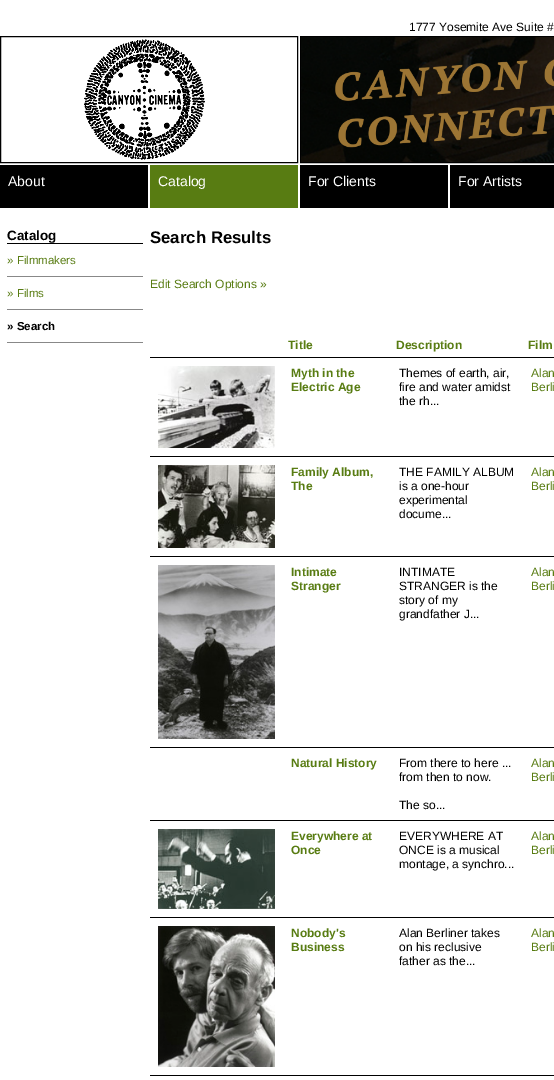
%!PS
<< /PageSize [554 1080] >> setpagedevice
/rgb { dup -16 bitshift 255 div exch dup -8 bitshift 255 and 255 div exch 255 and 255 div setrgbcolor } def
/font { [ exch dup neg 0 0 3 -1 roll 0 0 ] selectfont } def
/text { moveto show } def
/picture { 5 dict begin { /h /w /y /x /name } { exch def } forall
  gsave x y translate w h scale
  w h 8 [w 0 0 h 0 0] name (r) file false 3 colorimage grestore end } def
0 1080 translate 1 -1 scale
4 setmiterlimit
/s1 { /LiberationSans-Regular 12 font 16#000000 rgb } def
/s2 { /LiberationSans-Regular 14 font 16#FFFFFF rgb } def
/s3 { /LiberationSans-Bold 13.5 font 16#000000 rgb } def
/s4 { /LiberationSans-Regular 11.5 font 16#587C12 rgb } def
/s5 { /LiberationSans-Bold 11.5 font 16#000000 rgb } def
/s6 { /LiberationSans-Bold 16.75 font 16#000000 rgb } def
/s7 { /LiberationSans-Regular 12 font 16#587C12 rgb } def
/s8 { /LiberationSans-Bold 12 font 16#587C12 rgb } def
16#FFFFFF rgb
0 0 554 1080 rectfill
s1
(1777 Yosemite Ave Suite #) 409 31 text
0.5 36.5 297 126 rectstroke
(pic1.raw) 84 39 121 121 picture
300.5 36.5 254 126 rectstroke
(pic2.raw) 301 37 253 125 picture
0 165 148 43 rectfill
s2
(About) 8 186 text
16#587C12 rgb
150 165 148 43 rectfill
s2
(Catalog) 158 186 text
16#000000 rgb
300 165 148 43 rectfill
s2
(For Clients) 308 186 text
16#000000 rgb
450 165 104 43 rectfill
s2
(For Artists) 458 186 text
16#000000 rgb
7 243 136 1 rectfill
s3
(Catalog) 7 240 text
16#888888 rgb
7 276 136 1 rectfill
s4
(» Filmmakers) 7 264 text
16#888888 rgb
7 309 136 1 rectfill
s4
(» Films) 7 297 text
16#888888 rgb
7 342 136 1 rectfill
s5
(» Search) 7 330 text
s6
(Search Results) 150 243 text
s7
(Edit Search Options ») 150 288 text
16#000000 rgb
150 357 404 1 rectfill
s8
(Title) 288 349 text
(Description) 396 349 text
(Film) 528 349 text
16#000000 rgb
150 456 404 1 rectfill
(pic3.raw) 158 366 117 82 picture
s8
(Myth in the) 291 377 text
(Electric Age) 291 391 text
s1
(Themes of earth, air,) 399 377 text
(fire and water amidst) 399 391 text
(the rh...) 399 405 text
s7
(Alan) 531 377 text
(Berli) 531 391 text
16#000000 rgb
150 556 404 1 rectfill
(pic4.raw) 158 465 117 83 picture
s8
(Family Album,) 291 476 text
(The) 291 490 text
s1
(THE FAMILY ALBUM) 399 476 text
(is a one-hour) 399 490 text
(experimental) 399 504 text
(docume...) 399 518 text
s7
(Alan) 531 476 text
(Berli) 531 490 text
16#000000 rgb
150 747 404 1 rectfill
(pic5.raw) 158 565 117 174 picture
s8
(Intimate) 291 576 text
(Stranger) 291 590 text
s1
(INTIMATE) 399 576 text
(STRANGER is the) 399 590 text
(story of my) 399 604 text
(grandfather J...) 399 618 text
s7
(Alan) 531 576 text
(Berli) 531 590 text
16#000000 rgb
150 820 404 1 rectfill
s8
(Natural History) 291 767 text
s1
(From there to here ...) 399 767 text
(from then to now.) 399 781 text
(The so...) 399 809 text
s7
(Alan) 531 767 text
(Berli) 531 781 text
16#000000 rgb
150 917 404 1 rectfill
(pic6.raw) 158 829 117 80 picture
s8
(Everywhere at) 291 840 text
(Once) 291 854 text
s1
(EVERYWHERE AT) 399 840 text
(ONCE is a musical) 399 854 text
(montage, a synchro...) 399 868 text
s7
(Alan) 531 840 text
(Berli) 531 854 text
16#000000 rgb
150 1075 404 1 rectfill
(pic7.raw) 158 926 117 141 picture
s8
(Nobody's) 291 937 text
(Business) 291 951 text
s1
(Alan Berliner takes) 399 937 text
(on his reclusive) 399 951 text
(father as the...) 399 965 text
s7
(Alan) 531 937 text
(Berli) 531 951 text
showpage
